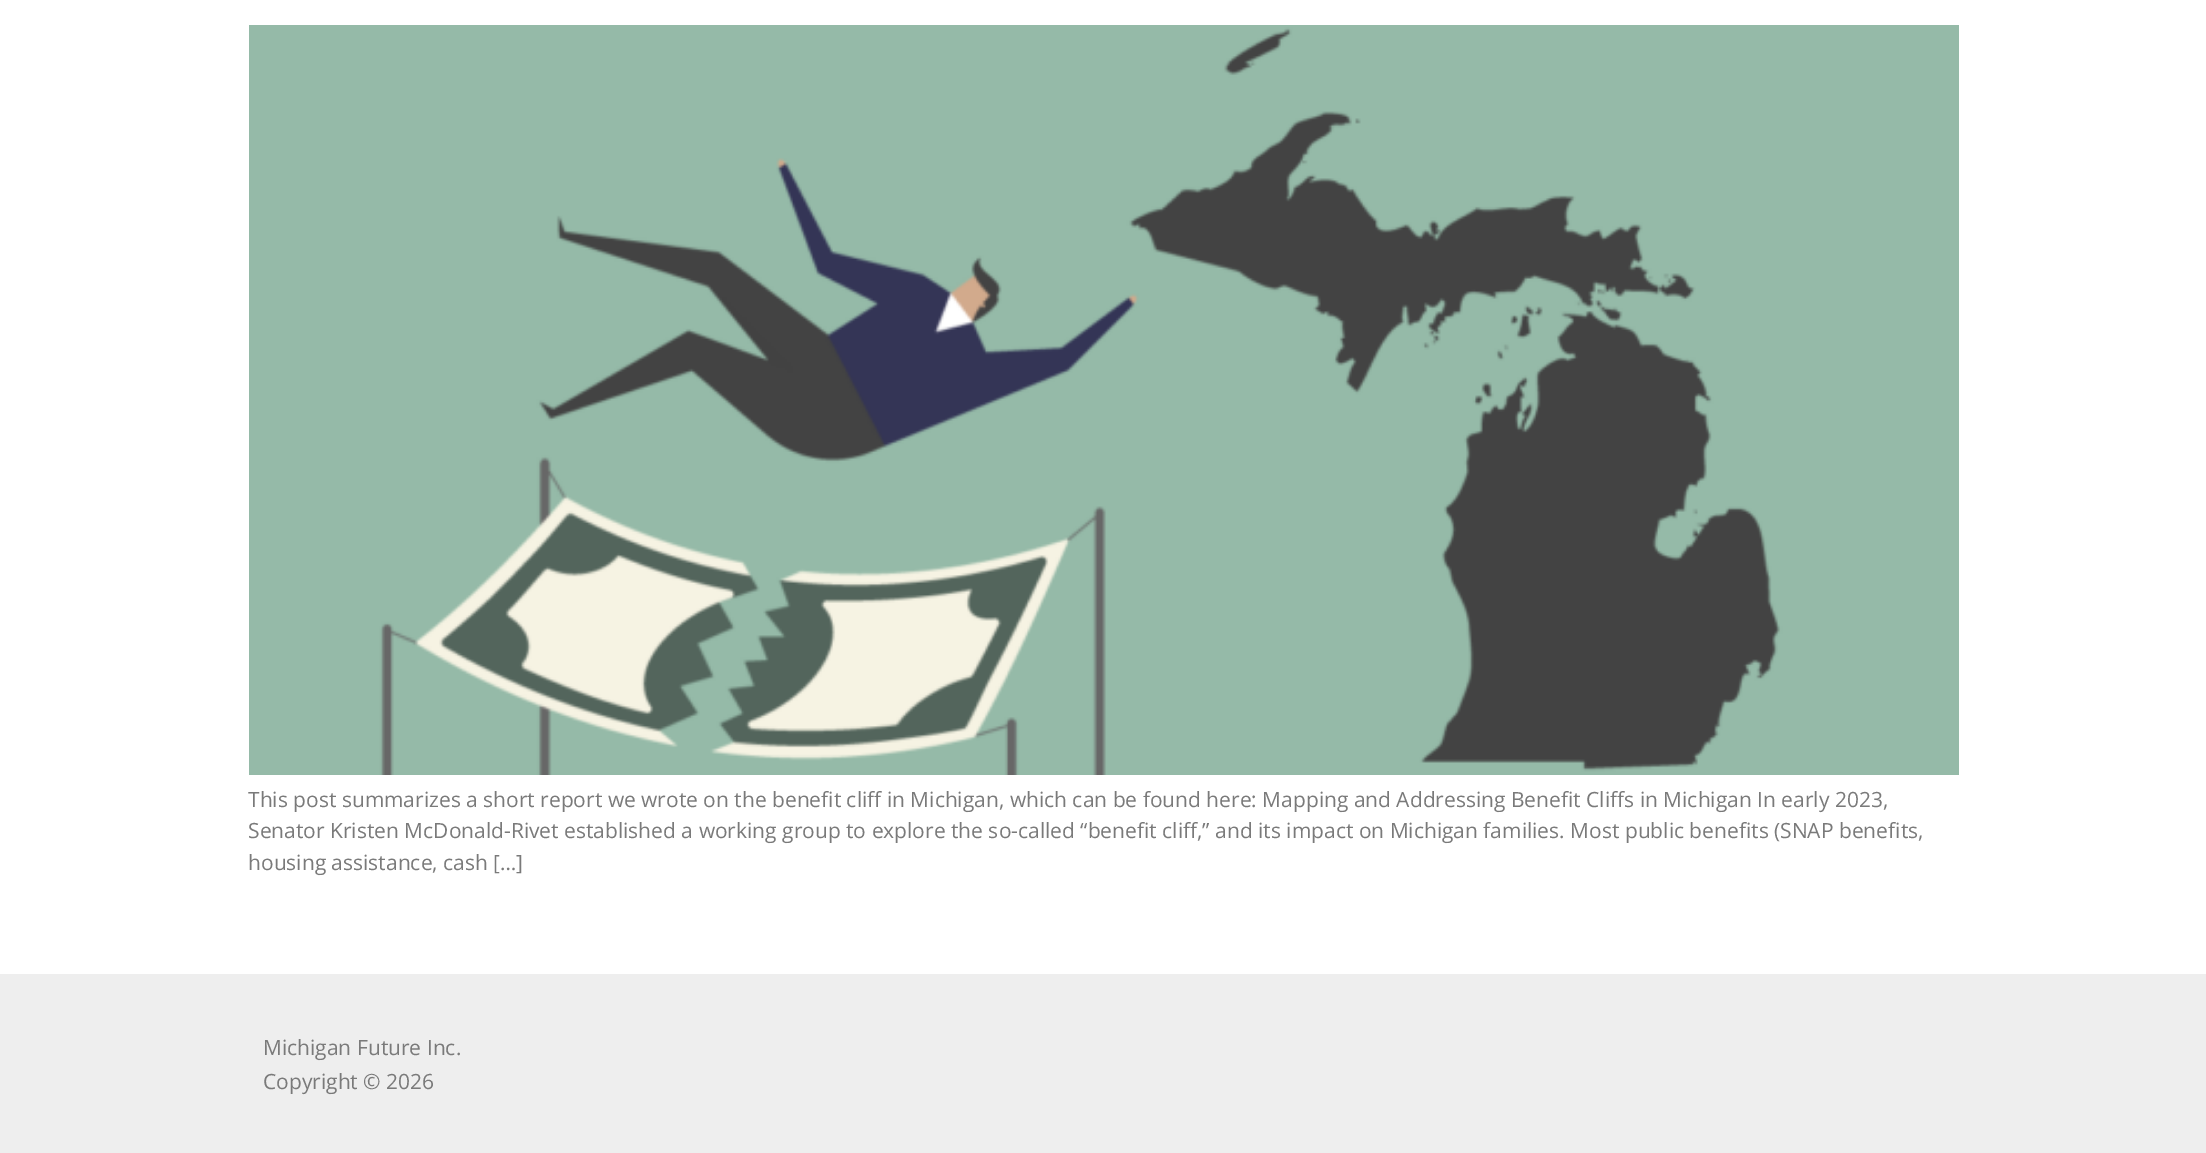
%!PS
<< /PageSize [2206 1153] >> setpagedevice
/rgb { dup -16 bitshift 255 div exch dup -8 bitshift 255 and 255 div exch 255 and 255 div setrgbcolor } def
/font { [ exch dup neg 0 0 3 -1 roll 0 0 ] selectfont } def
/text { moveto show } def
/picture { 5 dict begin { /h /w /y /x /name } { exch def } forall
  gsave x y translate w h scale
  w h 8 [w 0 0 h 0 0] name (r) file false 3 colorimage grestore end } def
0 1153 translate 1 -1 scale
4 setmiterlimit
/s1 { /OpenSans-Regular 21 font 16#7A7A7A rgb } def
16#FFFFFF rgb
0 0 2206 1153 rectfill
(pic1.raw) 249 25 1710 750 picture
s1
(This post summarizes a short report we wrote on the benefit cliff in Michigan, which can be found here: Mapping and Addressing Benefit Cliffs in Michigan In early 2023,) 248 807 text
(Senator Kristen McDonald-Rivet established a working group to explore the so-called “benefit cliff,” and its impact on Michigan families. Most public benefits \(SNAP benefits,) 248 838 text
(housing assistance, cash […]) 248 870 text
16#EEEEEE rgb
0 974 2206 179 rectfill
s1
(Michigan Future Inc.) 263 1055 text
(Copyright © 2026) 263 1089 text
showpage
